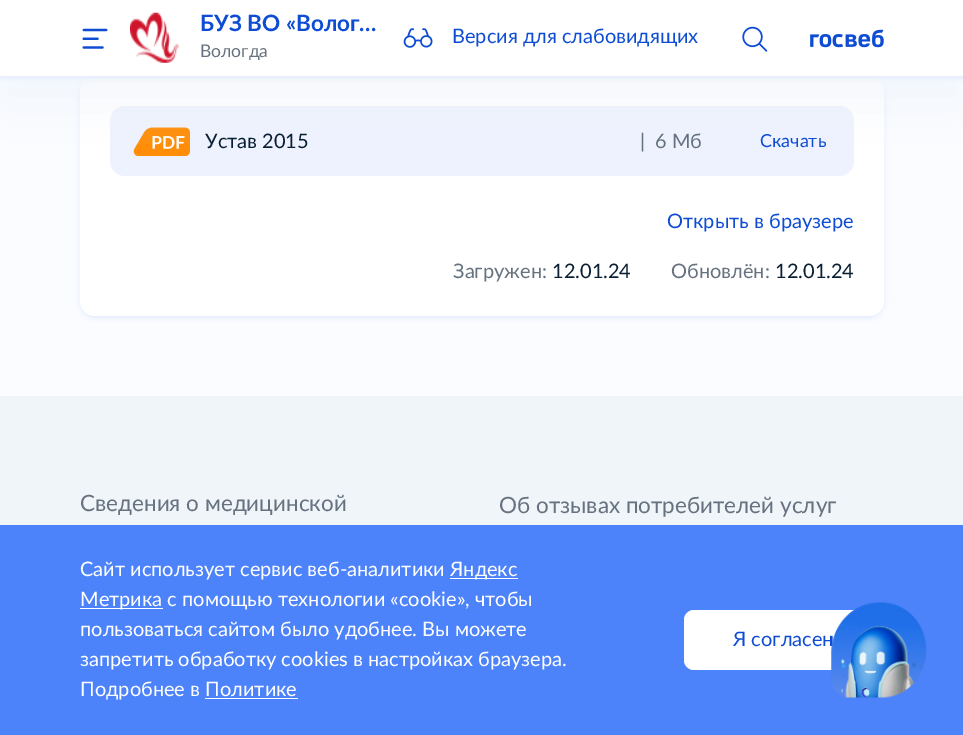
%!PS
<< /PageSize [963 735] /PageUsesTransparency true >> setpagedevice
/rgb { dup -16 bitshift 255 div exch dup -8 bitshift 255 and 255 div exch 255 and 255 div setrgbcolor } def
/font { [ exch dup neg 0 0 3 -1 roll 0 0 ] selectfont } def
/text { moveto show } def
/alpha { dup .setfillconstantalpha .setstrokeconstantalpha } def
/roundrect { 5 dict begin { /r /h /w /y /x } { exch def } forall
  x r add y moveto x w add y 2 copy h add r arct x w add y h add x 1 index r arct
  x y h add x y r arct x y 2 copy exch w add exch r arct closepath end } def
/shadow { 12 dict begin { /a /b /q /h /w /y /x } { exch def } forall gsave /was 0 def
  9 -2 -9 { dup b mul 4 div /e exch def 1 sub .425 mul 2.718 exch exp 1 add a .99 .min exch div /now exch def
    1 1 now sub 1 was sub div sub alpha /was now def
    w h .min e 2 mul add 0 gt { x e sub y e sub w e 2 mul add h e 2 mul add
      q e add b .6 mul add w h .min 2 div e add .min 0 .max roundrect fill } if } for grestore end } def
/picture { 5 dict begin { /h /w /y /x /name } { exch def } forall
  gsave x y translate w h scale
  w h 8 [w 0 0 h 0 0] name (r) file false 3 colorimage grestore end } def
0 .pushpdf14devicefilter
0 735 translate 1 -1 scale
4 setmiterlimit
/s1 { /Lato-Bold 22.5 font 16#0D4CD3 rgb } def
/s2 { /Lato-Regular 17.5 font 16#66727F rgb } def
/s3 { /Lato-Regular 20 font 16#0D4CD3 rgb } def
/s4 { /Lato-Regular 20 font 16#0B1F33 rgb } def
/s5 { /Lato-Regular 20 font 16#66727F rgb } def
/s6 { /Lato-Regular 18 font 16#0D4CD3 rgb } def
/s7 { /Lato-Regular 22.5 font 16#66727F rgb } def
/s8 { /Lato-Regular 20 font 16#FFFFFF rgb } def
16#FAFCFF rgb
0 0 963 735 rectfill
16#E3EBFC rgb
80 78 804 240 15 2.5 1 shadow
16#FFFFFF rgb
80 76 804 240 15 roundrect fill
16#EDF2FE rgb
110 106 744 70 15 roundrect fill
(pic6.raw) 133 127 57 29 picture
16#E6EBF5 rgb
0 30 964 76 0 30 0.4 shadow
16#E3EBFC rgb
0 1 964 77 0 2.5 1 shadow
16#FFFFFF rgb
0 0 963 76 rectfill
(pic1.raw) 82 28 26 21 picture
(pic2.raw) 130 12 49 51 picture
s1
(БУЗ ВО «Волог…) 200 31 text
s2
(Вологда) 200 57 text
(pic3.raw) 403 28 30 20 picture
s3
(Версия для слабовидящих) 452 43 text
(pic4.raw) 742 26 26 26 picture
(pic5.raw) 810 29 74 19 picture
s4
(Устав 2015) 205 148 text
s5
(|) 640 148 text
(6 Мб) 655 148 text
s6
(Скачать) 760 147 text
s3
(Открыть в браузере) 667 228 text
s5
(Загружен:) 453 278 text
s4
(12.01.24) 552 278 text
s5
(Обновлён:) 671 278 text
s4
(12.01.24) 775 278 text
16#EFF5F9 rgb
0 396 963 129 rectfill
s7
(Сведения о медицинской) 80 511 text
(Об отзывах потребителей услуг) 499 513 text
16#4D83FA rgb
0 525 963 210 rectfill
s8
(Сайт использует сервис веб-аналитики) 80 576 text
450 578 68 1 rectfill
(Яндекс) 450 576 text
80 608 83 1 rectfill
(Метрика с помощью технологии «cookie», чтобы) 80 606 text
(пользоваться сайтом было удобнее. Вы можете) 80 636 text
(запретить обработку cookies в настройках браузера.) 80 666 text
(Подробнее в Политике) 80 696 text
205 698 93 1 rectfill
684 610 200 60 10 roundrect fill
s3
(Я согласен) 733 646 text
(pic7.raw) 831 602 96 96 picture
.poppdf14devicefilter showpage
